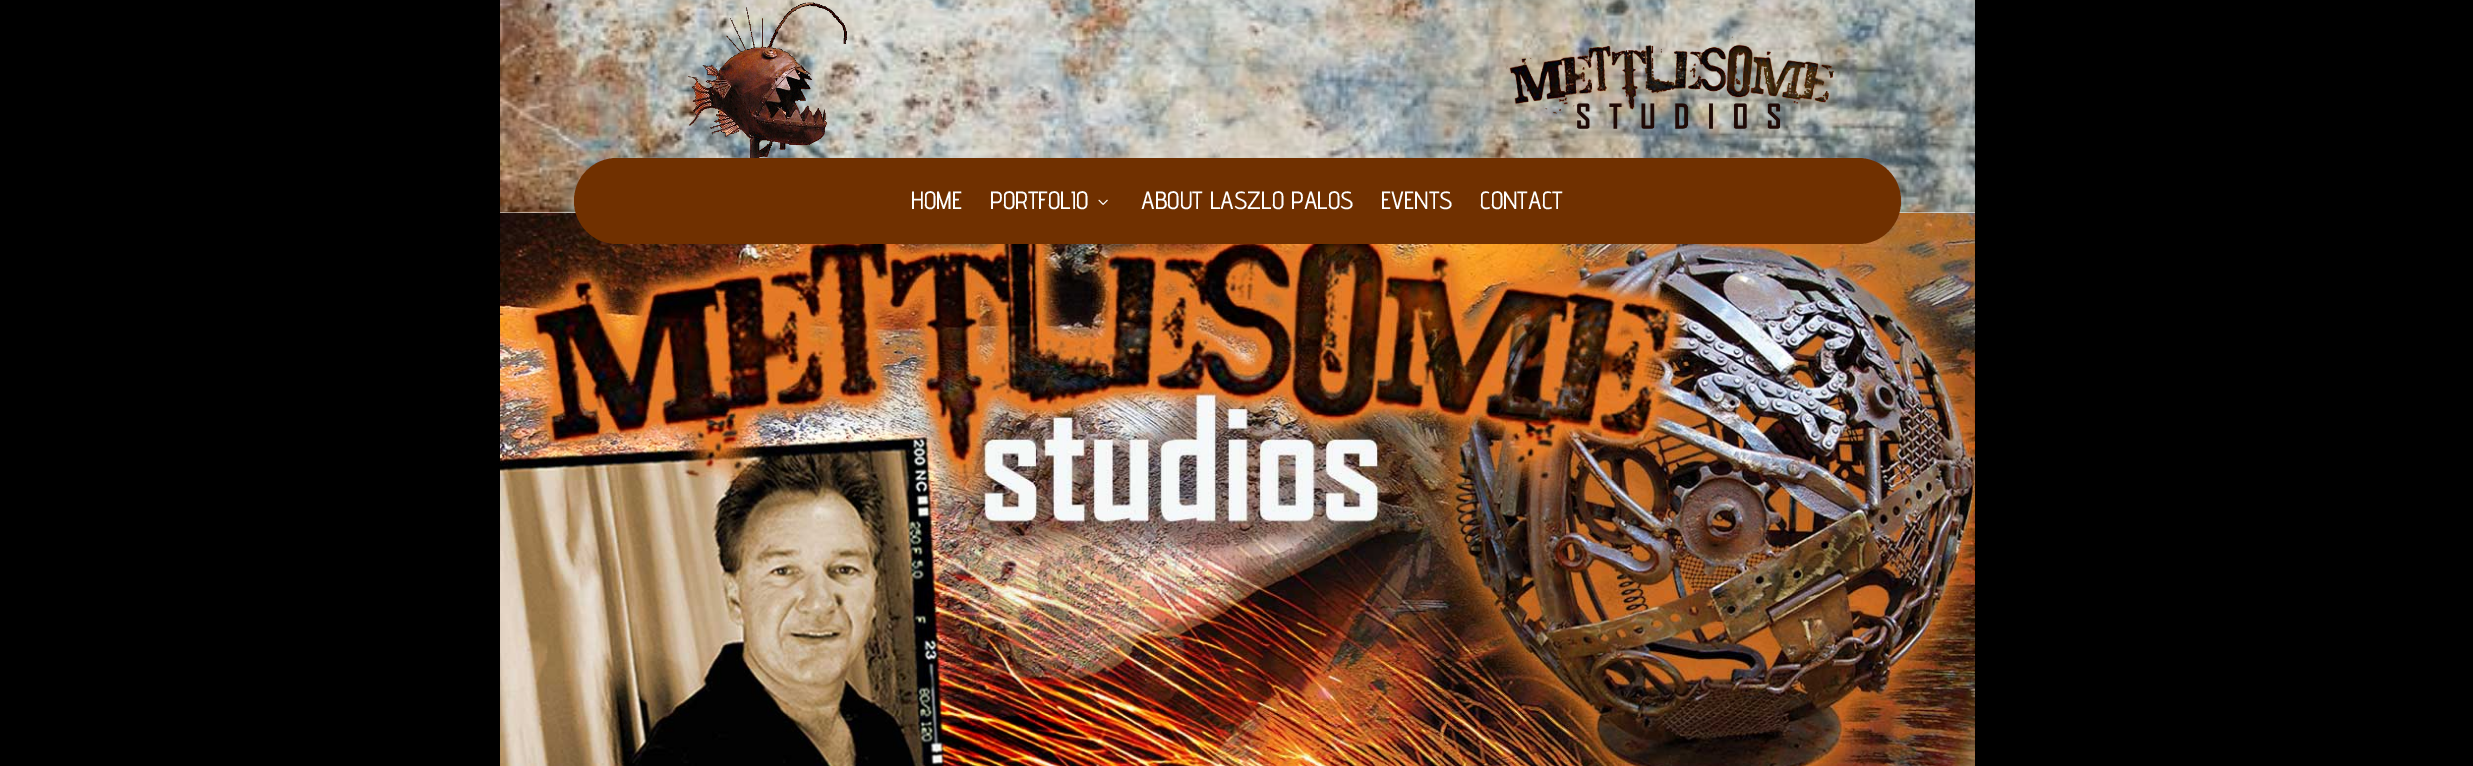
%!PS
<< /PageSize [2473 766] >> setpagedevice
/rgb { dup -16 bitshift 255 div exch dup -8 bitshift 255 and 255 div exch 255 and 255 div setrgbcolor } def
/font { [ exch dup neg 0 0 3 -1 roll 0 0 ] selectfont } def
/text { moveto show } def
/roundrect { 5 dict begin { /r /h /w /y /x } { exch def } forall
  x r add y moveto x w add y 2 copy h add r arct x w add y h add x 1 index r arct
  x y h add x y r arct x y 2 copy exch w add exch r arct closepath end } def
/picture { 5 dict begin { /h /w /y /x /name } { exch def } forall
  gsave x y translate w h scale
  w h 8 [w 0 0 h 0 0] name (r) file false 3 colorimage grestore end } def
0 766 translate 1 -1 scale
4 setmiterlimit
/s1 { /AdventPro-Medium 25 font 16#FFFFFF rgb } def
16#000000 rgb
0 0 2473 766 rectfill
16#FFFFFF rgb
500 212 1475 1 rectfill
(pic1.raw) 500 0 1475 213 picture
(pic2.raw) 688 2 159 156 picture
(pic3.raw) 1506 36 328 93 picture
(pic5.raw) 500 213 1475 553 picture
16#703000 rgb
574 158 1327 86 43 roundrect fill
s1
(HOME) 911 209 text
(PORTFOLIO) 990 209 text
(pic4.raw) 1098 199 10 6 picture
(ABOUT LASZLO PALOS) 1141 209 text
(EVENTS) 1381 209 text
(CONTACT) 1480 209 text
showpage
